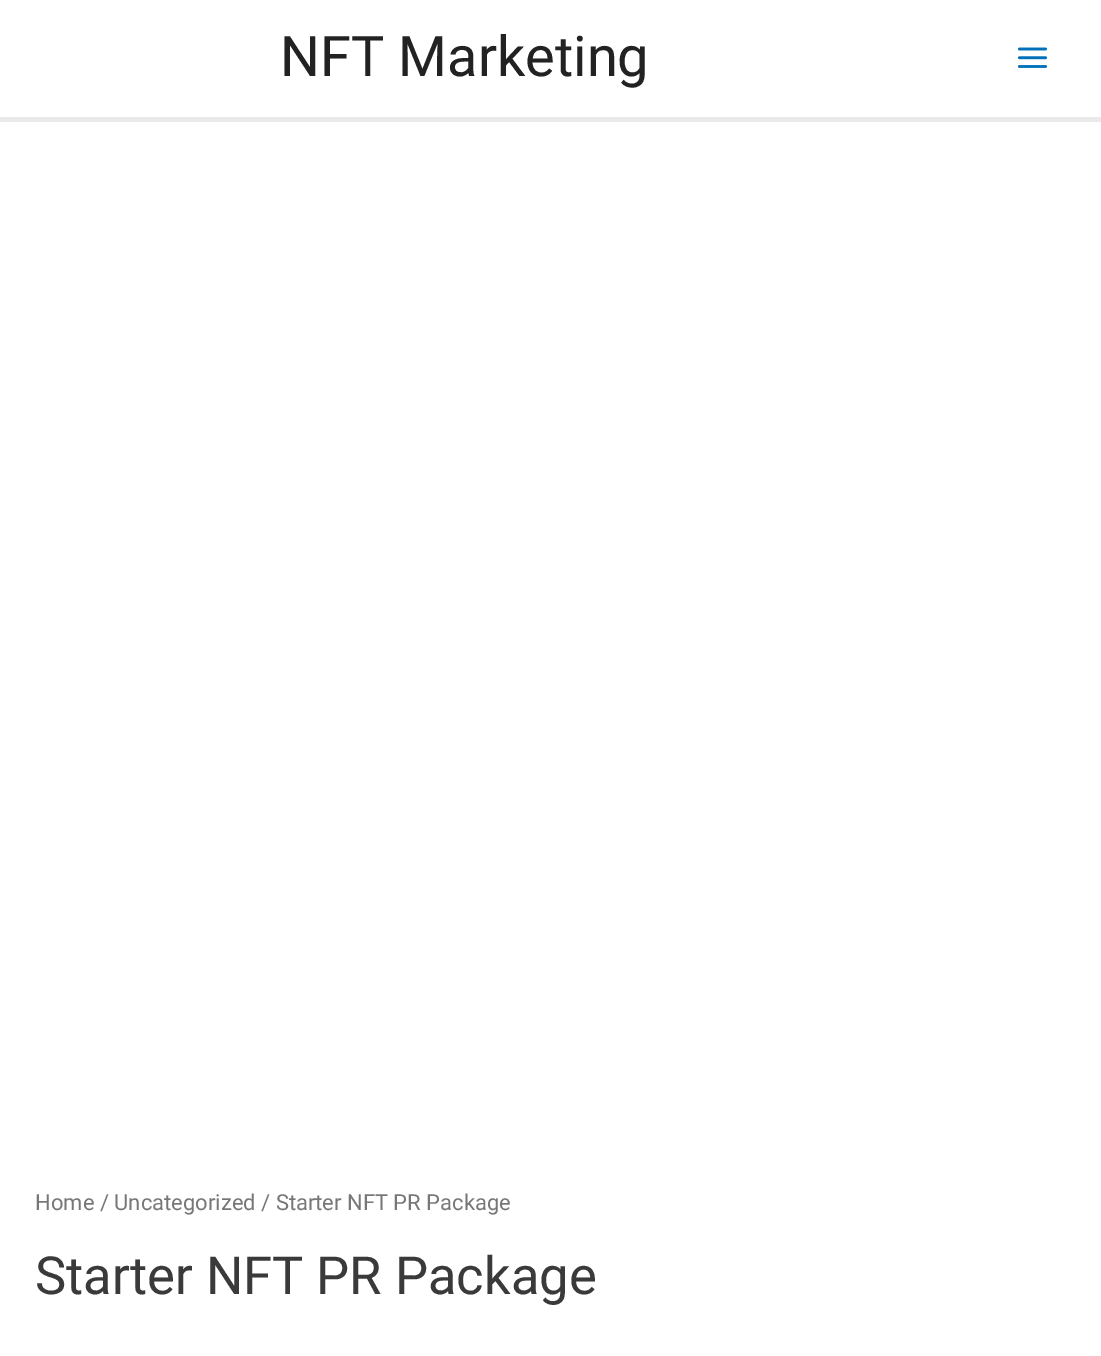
%!PS
<< /PageSize [1101 1356] >> setpagedevice
/rgb { dup -16 bitshift 255 div exch dup -8 bitshift 255 and 255 div exch 255 and 255 div setrgbcolor } def
/font { [ exch dup neg 0 0 3 -1 roll 0 0 ] selectfont } def
/text { moveto show } def
/picture { 5 dict begin { /h /w /y /x /name } { exch def } forall
  gsave x y translate w h scale
  w h 8 [w 0 0 h 0 0] name (r) file false 3 colorimage grestore end } def
0 1356 translate 1 -1 scale
4 setmiterlimit
/s1 { /Roboto-Regular 56 font 16#222222 rgb } def
/s2 { /Roboto-Regular 22 font 16#777777 rgb } def
/s3 { /Roboto-Regular 52.5 font 16#3A3A3A rgb } def
16#FFFFFF rgb
0 0 1101 1356 rectfill
16#EAEAEA rgb
0 117 1101 5 rectfill
s1
(NFT Marketing) 280 76 text
(pic1.raw) 1017 47 31 21 picture
s2
(Home / Uncategorized / Starter NFT PR Package) 35 1210 text
s3
(Starter NFT PR Package) 35 1294 text
showpage
